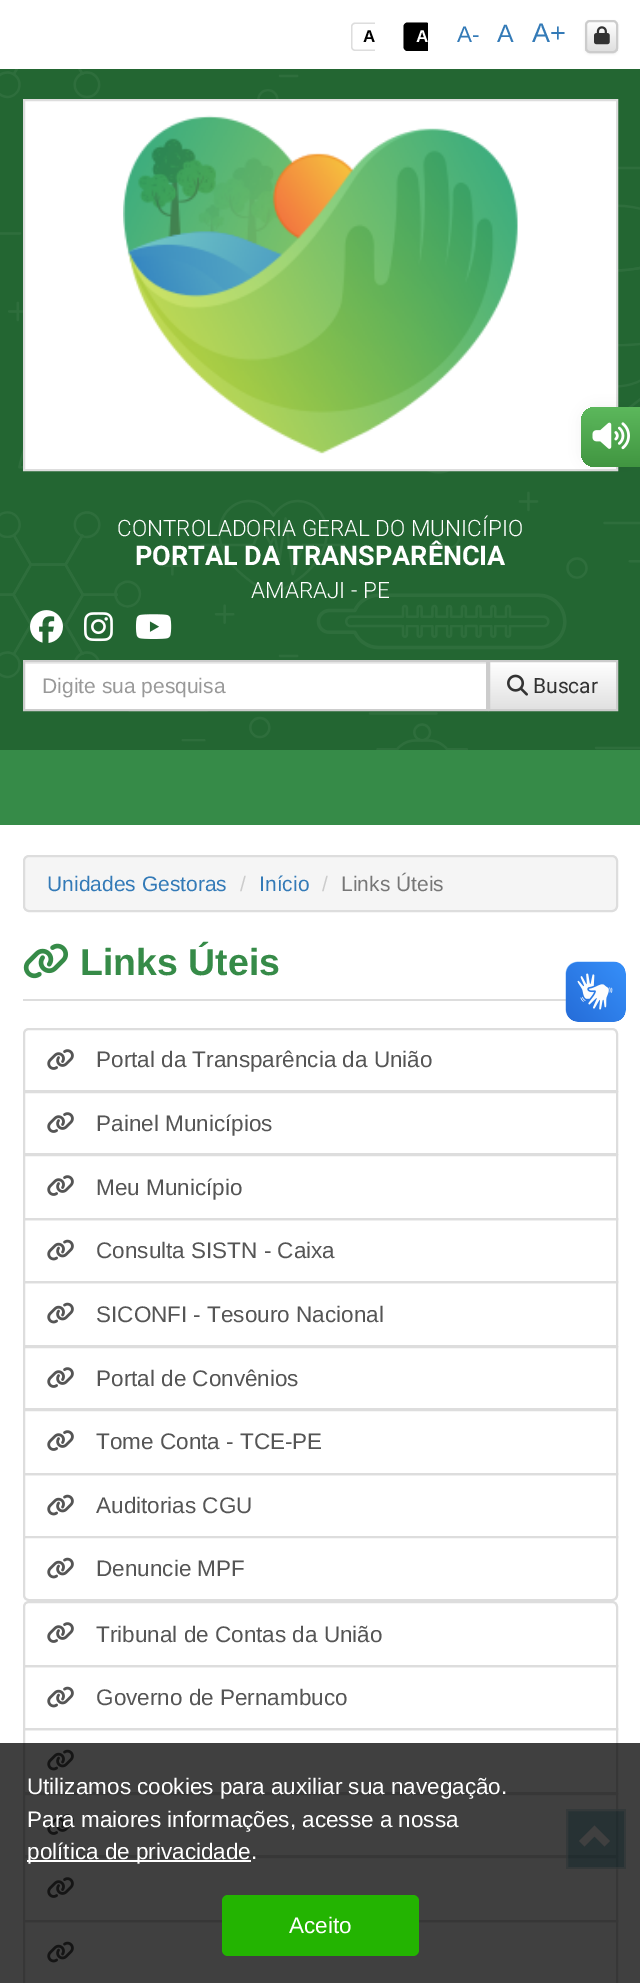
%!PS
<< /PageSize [640 1983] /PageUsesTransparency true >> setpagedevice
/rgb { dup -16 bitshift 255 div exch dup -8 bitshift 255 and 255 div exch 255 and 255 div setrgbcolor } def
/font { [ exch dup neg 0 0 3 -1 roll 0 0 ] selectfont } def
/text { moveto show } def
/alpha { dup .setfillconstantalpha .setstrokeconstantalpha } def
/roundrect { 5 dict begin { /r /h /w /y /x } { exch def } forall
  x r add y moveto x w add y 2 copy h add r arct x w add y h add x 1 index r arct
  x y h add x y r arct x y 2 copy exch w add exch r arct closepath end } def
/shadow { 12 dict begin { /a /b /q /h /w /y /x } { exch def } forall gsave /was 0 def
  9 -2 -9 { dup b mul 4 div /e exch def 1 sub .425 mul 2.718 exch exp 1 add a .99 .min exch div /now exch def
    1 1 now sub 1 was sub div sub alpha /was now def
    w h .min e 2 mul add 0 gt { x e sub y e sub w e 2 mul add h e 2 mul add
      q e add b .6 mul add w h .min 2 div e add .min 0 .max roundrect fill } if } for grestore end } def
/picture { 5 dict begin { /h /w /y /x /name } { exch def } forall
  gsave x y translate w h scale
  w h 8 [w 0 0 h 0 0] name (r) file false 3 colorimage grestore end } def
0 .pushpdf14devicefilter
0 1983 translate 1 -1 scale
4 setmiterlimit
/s1 { /LiberationSans-Bold 17 font 16#000000 rgb } def
/s2 { /LiberationSans-Bold 17 font 16#FFFFFF rgb } def
/s3 { /LiberationSans-Regular 22.5 font 16#337AB7 rgb } def
/s4 { /LiberationSans-Regular 25 font 16#337AB7 rgb } def
/s5 { /LiberationSans-Regular 27 font 16#337AB7 rgb } def
/s6 { /Roboto-Light 22.5 font 16#FFFFFF rgb } def
/s7 { /Roboto-Bold 27 font 16#FFFFFF rgb } def
/s8 { /LiberationSans-Regular 21 font 16#999999 rgb } def
/s9 { /Roboto-Regular 21 font 16#333333 rgb } def
/s10 { /LiberationSans-Regular 21 font 16#337AB7 rgb } def
/s11 { /LiberationSans-Regular 21 font 16#CCCCCC rgb } def
/s12 { /LiberationSans-Regular 21 font 16#777777 rgb } def
/s13 { /LiberationSans-Bold 37.5 font 16#368B48 rgb } def
/s14 { /LiberationSans-Regular 22.5 font 16#555555 rgb } def
/s15 { /LiberationSans-Regular 22.5 font 16#FFFFFF rgb } def
16#FFFFFF rgb
0 0 640 1983 rectfill
16#DDDDDD rgb
355 22.5 moveto 375 22.5 lineto 375 51 lineto 355 51 lineto 353 51 351 49 351 47 curveto 351 26.5 lineto 351 24.5 353 22.5 355 22.5 curveto closepath 355 24 moveto 375 24 lineto 375 49.5 lineto 355 49.5 lineto 353.5 49.5 352.5 48.5 352.5 47 curveto 352.5 26.5 lineto 352.5 25 353.5 24 355 24 curveto closepath eofill
s1
(A) 363 42 text
409 23 moveto 428 23 lineto 428 51 lineto 409 51 lineto 406 51 404 49 404 46 curveto 404 28 lineto 404 25 406 23 409 23 curveto closepath fill
407.5 22.5 moveto 427.5 22.5 lineto 427.5 51 lineto 407.5 51 lineto 405.5 51 403.5 49 403.5 47 curveto 403.5 26.5 lineto 403.5 24.5 405.5 22.5 407.5 22.5 curveto closepath 407.5 24 moveto 427.5 24 lineto 427.5 49.5 lineto 407.5 49.5 lineto 406 49.5 405 48.5 405 47 curveto 405 26.5 lineto 405 25 406 24 407.5 24 curveto closepath eofill
s2
(A) 416 42 text
s3
(A-) 457 42 text
s4
(A) 497 42 text
s5
(A+) 532 42 text
16#000000 rgb
585 21 33 33 5 1 0.07 shadow
gsave
585 20 33 33 5 roundrect clip newpath
gsave 585 21 moveto 618 21 lineto 618 51 lineto 585 51 lineto closepath clip newpath
<< /ShadingType 2 /ColorSpace /DeviceRGB /Coords [602 21 602 51] /Extend [true true] /Function << /FunctionType 2 /Domain [0 1] /C0 [1 1 1] /C1 [0.878 0.878 0.878] /N 1 >> >> shfill grestore
grestore
16#CCCCCC rgb
2 setlinewidth
586 21 31 31 4 roundrect stroke
(pic1.raw) 594 26 16 19 picture
16#236632 rgb
0 69 640 681 rectfill
(pic3.raw) 0 69 640 681 picture
16#FFFFFF rgb
24 100 moveto 617 100 lineto 617 470 lineto 24 470 lineto closepath gsave fill grestore
16#DDDDDD rgb
stroke
16#000000 rgb
581 407 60 60 15 7.5 0.05 shadow
gsave 596 407 moveto 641 407 lineto 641 467 lineto 596 467 lineto 587.5 467 581 460.5 581 452 curveto 581 422 lineto 581 413.5 587.5 407 596 407 curveto closepath clip newpath
<< /ShadingType 2 /ColorSpace /DeviceRGB /Coords [611 407 611 467] /Extend [true true] /Function << /FunctionType 2 /Domain [0 1] /C0 [0.361 0.722 0.361] /C1 [0.255 0.588 0.255] /N 1 >> >> shfill grestore
(pic2.raw) 592 422 38 28 picture
16#DDDDDD rgb
29 1602 moveto 612 1602 lineto 615 1602 617 1604 617 1607 curveto 617 1666 lineto 24 1666 lineto 24 1607 lineto 24 1604 26 1602 29 1602 curveto closepath stroke
24 1666 593 63 rectstroke
24 1729 593 64 rectstroke
24 1794 593 62 rectstroke
24 1857 593 64 rectstroke
0.4 alpha
16#097189 rgb
566 1809 60 60 rectfill
0.5 alpha
16#FFFFFF rgb
567 1810 58 58 rectstroke
1 alpha
610 1841 moveto 604.5 1846.5 lineto 594.5 1836.5 lineto 584.5 1846.5 lineto 579 1841 lineto 594.5 1825.5 lineto closepath fill
(pic4.raw) 123 115 395 339 picture
s6
(CONTROLADORIA GERAL DO MUNICÍPIO) 117 536 text
s7
(PORTAL DA TRANSPARÊNCIA) 135 565 text
s6
(AMARAJI - PE) 251 598 text
(pic5.raw) 30 610 33 33 picture
(pic6.raw) 84 612 29 30 picture
(pic7.raw) 135 614 37 25 picture
25 664 461 45 rectfill
16#ECECEC rgb
24 662 462 2 rectfill
16#CCCCCC rgb
24 661 463 49 rectstroke
s8
(Digite sua pesquisa) 42 693 text
gsave 490 662 moveto 616 662 lineto 616 709 lineto 490 709 lineto closepath clip newpath
<< /ShadingType 2 /ColorSpace /DeviceRGB /Coords [553 662 553 710] /Extend [true true] /Function << /FunctionType 2 /Domain [0 1] /C0 [1 1 1] /C1 [0.878 0.878 0.878] /N 1 >> >> shfill grestore
16#CCCCCC rgb
489 661 128 49 rectstroke
(pic8.raw) 507 674 21 22 picture
s9
(Buscar) 533 693 text
16#368B48 rgb
0 750 640 75 rectfill
16#F5F5F5 rgb
24 856 593 55 5 roundrect gsave fill grestore
16#DDDDDD rgb
stroke
s10
(Unidades Gestoras) 47 891 text
s11
(/) 240 891 text
s10
(Início) 259 891 text
s11
(/) 322 891 text
s12
(Links Úteis) 341 891 text
16#DDDDDD rgb
23 999 543 2 rectfill
(pic9.raw) 23 943 46 36 picture
s13
(Links Úteis) 80 975 text
16#DDDDDD rgb
29 1029 moveto 612 1029 lineto 615 1029 617 1031 617 1034 curveto 617 1091 lineto 24 1091 lineto 24 1034 lineto 24 1031 26 1029 29 1029 curveto closepath stroke
(pic10.raw) 47 1049 27 21 picture
s14
(Portal da Transparência da União) 96 1067 text
16#DDDDDD rgb
24 1092 593 62 rectstroke
(pic10.raw) 47 1112 27 21 picture
s14
(Painel Municípios) 96 1131 text
16#DDDDDD rgb
24 1155 593 64 rectstroke
(pic10.raw) 47 1175 27 21 picture
s14
(Meu Município) 96 1195 text
16#DDDDDD rgb
24 1219 593 63 rectstroke
(pic11.raw) 47 1239 27 22 picture
s14
(Consulta SISTN - Caixa) 96 1258 text
16#DDDDDD rgb
24 1282 593 64 rectstroke
(pic11.raw) 47 1302 27 22 picture
s14
(SICONFI - Tesouro Nacional) 96 1322 text
16#DDDDDD rgb
24 1347 593 62 rectstroke
(pic10.raw) 47 1367 27 21 picture
s14
(Portal de Convênios) 96 1386 text
16#DDDDDD rgb
24 1410 593 64 rectstroke
(pic10.raw) 47 1430 27 21 picture
s14
(Tome Conta - TCE-PE) 96 1449 text
16#DDDDDD rgb
24 1474 593 63 rectstroke
(pic11.raw) 47 1494 27 22 picture
s14
(Auditorias CGU) 96 1513 text
16#FFFFFF rgb
24 1537 moveto 617 1537 lineto 617 1595 lineto 617 1598 615 1600 612 1600 curveto 29 1600 lineto 26 1600 24 1598 24 1595 curveto closepath gsave fill grestore
16#DDDDDD rgb
stroke
(pic11.raw) 47 1557 27 22 picture
s14
(Denuncie MPF) 96 1576 text
(pic10.raw) 47 1622 27 21 picture
(Tribunal de Contas da União) 96 1642 text
(pic11.raw) 47 1686 27 22 picture
(Governo de Pernambuco) 96 1705 text
(pic11.raw) 47 1749 27 22 picture
(pic10.raw) 47 1814 27 21 picture
(pic10.raw) 47 1877 27 21 picture
16#DDDDDD rgb
24 1921 593 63 rectstroke
(pic11.raw) 47 1941 27 22 picture
(pic12.raw) 565 961 61 61 picture
(pic13.raw) 566 962 60 60 picture
0.75 alpha
16#000000 rgb
0 1743 640 240 rectfill
1 alpha
s15
(Utilizamos cookies para auxiliar sua navegação.) 27 1794 text
(Para maiores informações, acesse a nossa) 27 1827 text
27 1860 224 2 rectfill
(política de privacidade.) 27 1859 text
0.99 alpha
16#23B500 rgb
222 1895 197 61 6 roundrect fill
1 alpha
s15
(Aceito) 289 1933 text
.poppdf14devicefilter showpage
